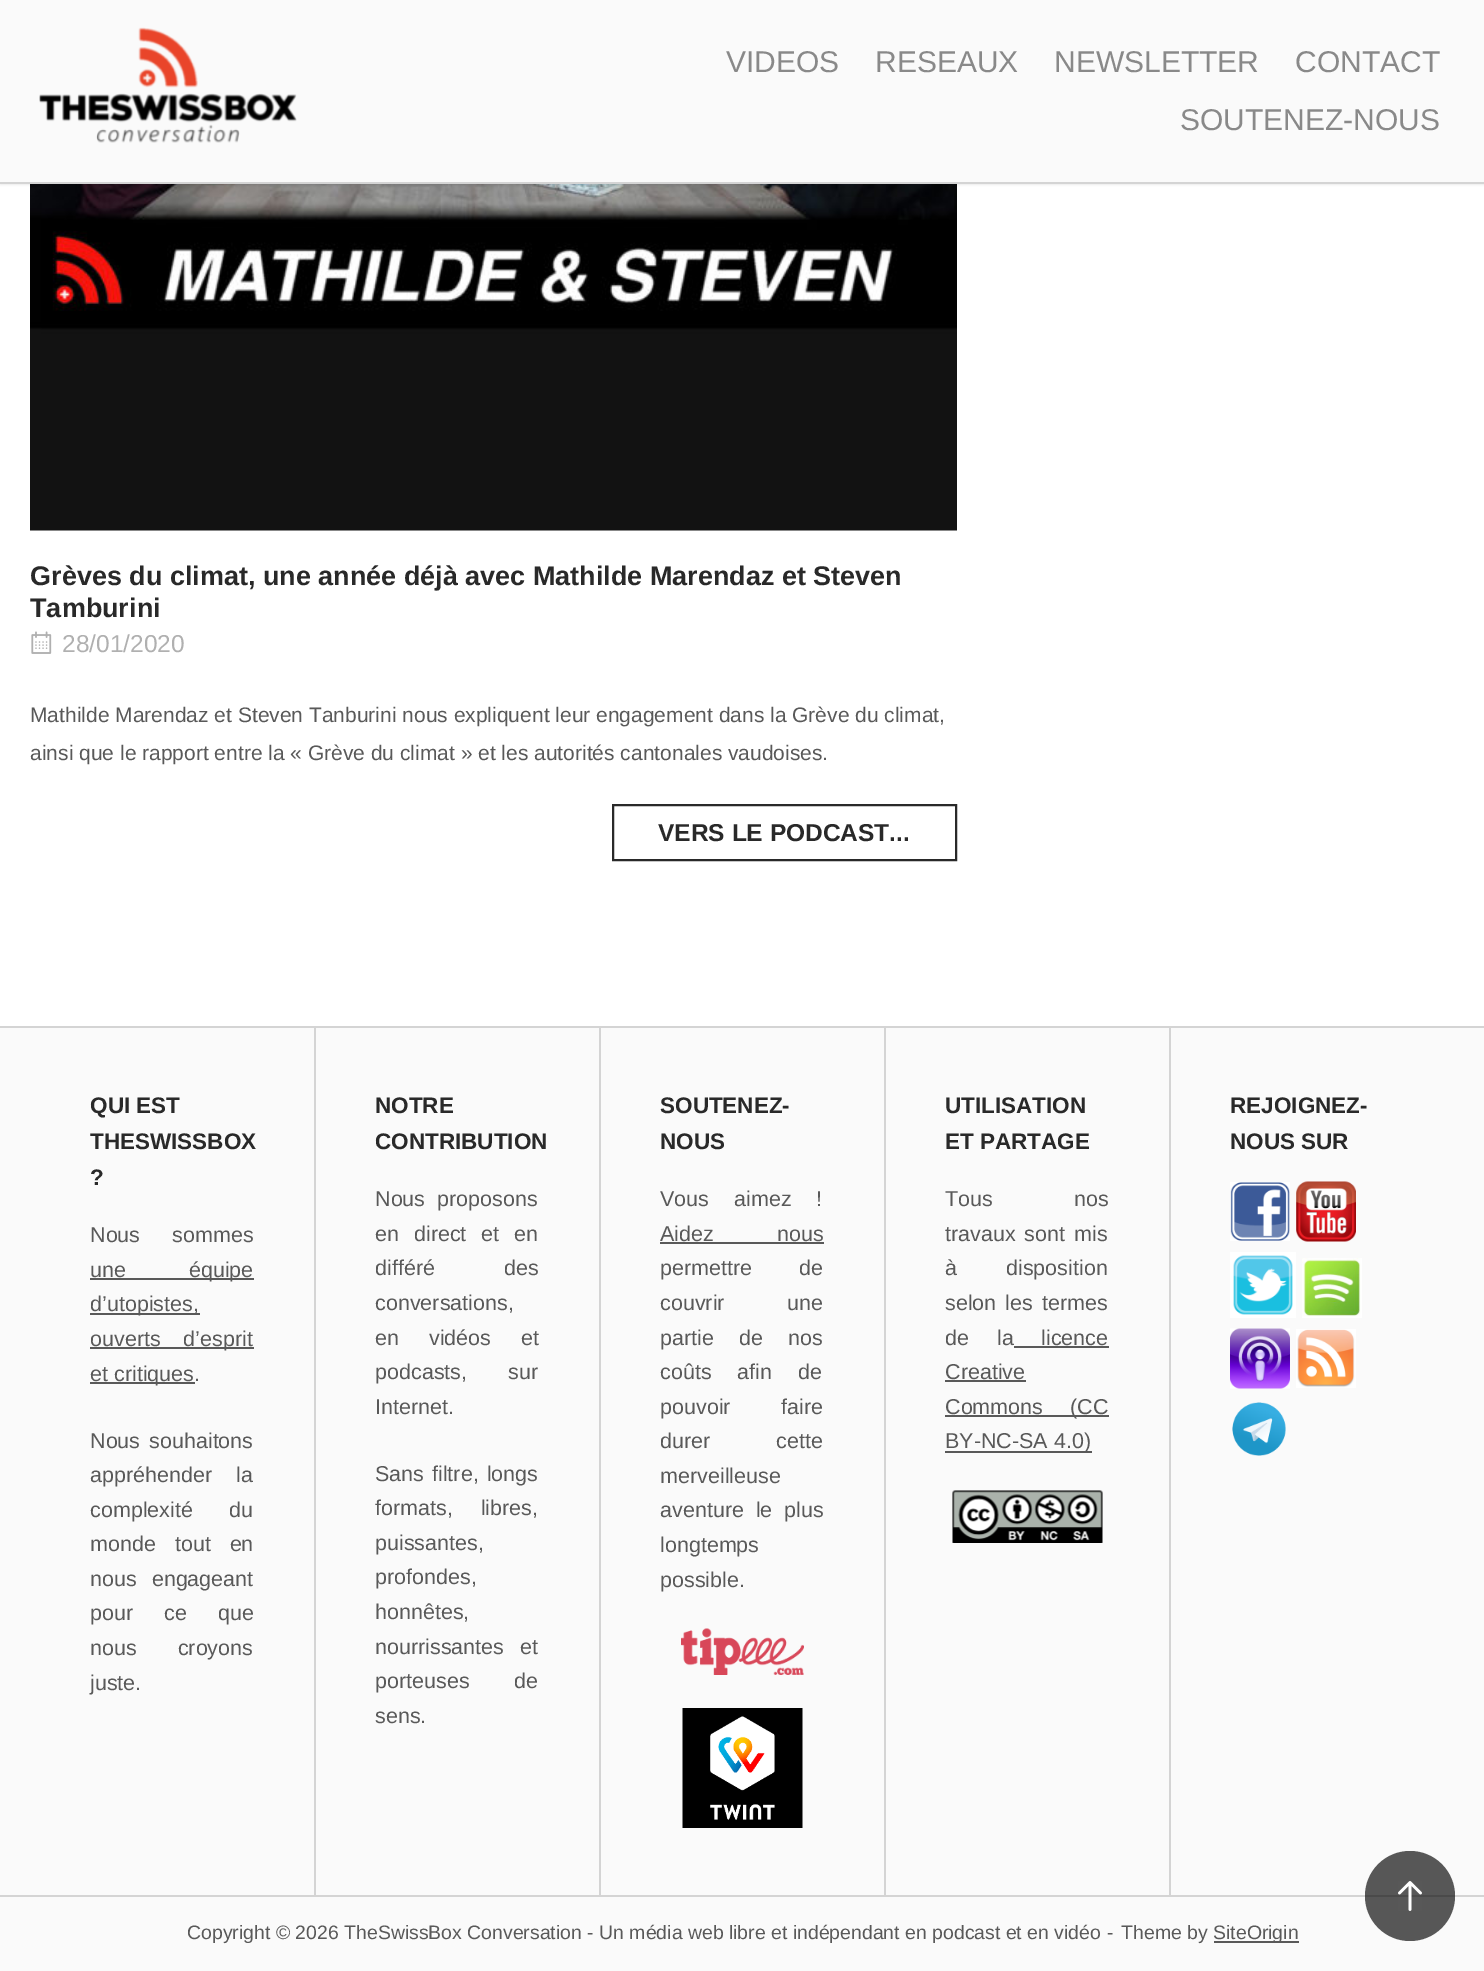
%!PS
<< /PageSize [1484 1971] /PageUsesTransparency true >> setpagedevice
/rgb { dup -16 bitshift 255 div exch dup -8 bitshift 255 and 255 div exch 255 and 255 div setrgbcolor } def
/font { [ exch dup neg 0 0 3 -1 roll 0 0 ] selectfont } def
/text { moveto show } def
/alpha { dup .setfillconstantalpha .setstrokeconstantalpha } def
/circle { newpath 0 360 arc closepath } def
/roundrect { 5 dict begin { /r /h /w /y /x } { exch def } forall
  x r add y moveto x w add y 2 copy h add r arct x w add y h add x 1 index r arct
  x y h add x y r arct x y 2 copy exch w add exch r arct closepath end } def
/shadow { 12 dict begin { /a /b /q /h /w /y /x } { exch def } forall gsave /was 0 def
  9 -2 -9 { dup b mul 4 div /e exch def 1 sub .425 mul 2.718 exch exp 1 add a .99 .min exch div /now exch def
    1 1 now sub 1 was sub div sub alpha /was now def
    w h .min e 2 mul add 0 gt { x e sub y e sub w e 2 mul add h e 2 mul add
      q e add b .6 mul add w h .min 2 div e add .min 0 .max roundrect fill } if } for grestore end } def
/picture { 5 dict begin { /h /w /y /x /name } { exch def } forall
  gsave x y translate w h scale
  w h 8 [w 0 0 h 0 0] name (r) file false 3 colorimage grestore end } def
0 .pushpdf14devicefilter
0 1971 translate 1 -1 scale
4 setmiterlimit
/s1 { /LiberationSans-Regular 30 font 16#898989 rgb } def
/s2 { /LiberationSans-Bold 27 font 16#292929 rgb } def
/s3 { /LiberationSans-Regular 24.5 font 16#B0B0B0 rgb } def
/s4 { /LiberationSans-Regular 21 font 16#595959 rgb } def
/s5 { /LiberationSans-Bold 24.5 font 16#292929 rgb } def
/s6 { /LiberationSans-Bold 22.5 font 16#292929 rgb } def
/s7 { /LiberationSans-Regular 21.5 font 16#595959 rgb } def
/s8 { /LiberationSans-Regular 19.45 font 16#595959 rgb } def
16#FFFFFF rgb
0 0 1484 1971 rectfill
(pic2.raw) 30 184 927 347 picture
16#000000 rgb
0 2 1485 183 0 1 0.07 shadow
16#FAFAFA rgb
0 0 1484 182 rectfill
16#D4D4D4 rgb
0 182 1484 2 rectfill
(pic1.raw) 39 27 258 116 picture
s1
(VIDEOS) 726 72 text
(RESEAUX) 875 72 text
(NEWSLETTER) 1054 72 text
(CONTACT) 1295 72 text
(SOUTENEZ-NOUS) 1180 130 text
s2
(Grèves du climat, une année déjà avec Mathilde Marendaz et Steven) 30 585 text
(Tamburini) 30 617 text
(pic3.raw) 31 631 21 23 picture
s3
(28/01/2020) 62 652 text
s4
(Mathilde Marendaz et Steven Tanburini nous expliquent leur engagement dans la Grève du climat,) 30 722 text
(ainsi que le rapport entre la « Grève du climat » et les autorités cantonales vaudoises.) 30 760 text
16#292929 rgb
2 setlinewidth
613 805 343 55 rectstroke
s5
(VERS LE PODCAST...) 658 841 text
16#FAFAFA rgb
0 1028 1484 943 rectfill
16#D4D4D4 rgb
0 1026 1484 2 rectfill
314 1028 2 867 rectfill
s6
(QUI EST) 90 1113 text
(THESWISSBOX) 90 1149 text
(?) 90 1185 text
/LiberationSans-Regular 21.5 font
16#595959 rgb
90 1242 moveto 26 0 32 (Nous sommes) widthshow
90 1278 164 2 rectfill
90 1277 moveto 57 0 32 (une équipe) widthshow
90 1313 110 2 rectfill
(d’utopistes,) 90 1311 text
90 1347 164 2 rectfill
90 1346 moveto 17 0 32 (ouverts d’esprit) widthshow
90 1382 105 2 rectfill
(et critiques.) 90 1381 text
90 1448 moveto 3 0 32 (Nous souhaitons) widthshow
90 1482 moveto 18 0 32 (appréhender la) widthshow
90 1517 moveto 30 0 32 (complexité du) widthshow
90 1551 moveto 13 0 32 (monde tout en) widthshow
90 1586 moveto 9 0 32 (nous engageant) widthshow
90 1620 moveto 25 0 32 (pour ce que) widthshow
90 1655 moveto 35 0 32 (nous croyons) widthshow
(juste.) 90 1690 text
16#D4D4D4 rgb
599 1028 2 867 rectfill
s6
(NOTRE) 375 1113 text
(CONTRIBUTION) 375 1149 text
/LiberationSans-Regular 21.5 font
16#595959 rgb
375 1206 moveto 6 0 32 (Nous proposons) widthshow
375 1241 moveto 9 0 32 (en direct et en) widthshow
375 1275 moveto 63 0 32 (différé des) widthshow
(conversations,) 375 1310 text
375 1345 moveto 24 0 32 (en vidéos et) widthshow
(podcasts,) 375 1379 text
(sur) 508 1379 text
(Internet.) 375 1414 text
375 1481 moveto 2 0 32 (Sans filtre, longs) widthshow
375 1515 moveto 22 0 32 (formats, libres,) widthshow
(puissantes,) 375 1550 text
(profondes,) 375 1584 text
(honnêtes,) 375 1619 text
375 1654 moveto 10 0 32 (nourrissantes et) widthshow
375 1688 moveto 39 0 32 (porteuses de) widthshow
(sens.) 375 1723 text
16#D4D4D4 rgb
884 1028 2 867 rectfill
s6
(SOUTENEZ-) 660 1113 text
(NOUS) 660 1149 text
/LiberationSans-Regular 21.5 font
16#595959 rgb
660 1206 moveto 19 0 32 (Vous aimez !) widthshow
660 1241 moveto 57 0 32 (Aidez nous) widthshow
660 1242 164 2 rectfill
660 1275 moveto 41 0 32 (permettre de) widthshow
660 1310 moveto 57 0 32 (couvrir une) widthshow
660 1345 moveto 19 0 32 (partie de nos) widthshow
660 1379 moveto 20 0 32 (coûts afin de) widthshow
660 1414 moveto 45 0 32 (pouvoir faire) widthshow
660 1448 moveto 60 0 32 (durer cette) widthshow
(merveilleuse) 660 1483 text
660 1517 moveto 6 0 32 (aventure le plus) widthshow
(longtemps) 660 1552 text
(possible.) 660 1587 text
(pic4.raw) 681 1628 123 47 picture
(pic5.raw) 682 1708 121 120 picture
16#D4D4D4 rgb
1169 1028 2 867 rectfill
s6
(UTILISATION) 945 1113 text
(ET PARTAGE) 945 1149 text
/LiberationSans-Regular 21.5 font
16#595959 rgb
945 1206 moveto 75 0 32 (Tous nos) widthshow
945 1241 moveto 3 0 32 (travaux sont mis) widthshow
945 1275 moveto 43 0 32 (à disposition) widthshow
945 1310 moveto 3 0 32 (selon les termes) widthshow
945 1345 moveto 22 0 32 (de la) widthshow
(licence) 1041 1345 text
1014 1346 95 2 rectfill
(Creative) 945 1379 text
945 1380 81 2 rectfill
(Commons) 945 1414 text
945 1415 164 2 rectfill
(\(CC) 1070 1414 text
945 1451 147 2 rectfill
(BY-NC-SA 4.0\)) 945 1448 text
(pic6.raw) 952 1490 151 53 picture
s6
(REJOIGNEZ-) 1230 1113 text
(NOUS SUR) 1230 1149 text
(pic7.raw) 1230 1182 60 59 picture
(pic8.raw) 1296 1181 60 61 picture
(pic9.raw) 1230 1252 66 66 picture
(pic10.raw) 1302 1258 60 60 picture
(pic11.raw) 1230 1328 60 61 picture
(pic12.raw) 1296 1329 60 59 picture
(pic13.raw) 1232 1402 54 54 picture
16#D4D4D4 rgb
0 1895 1484 2 rectfill
s8
(Copyright © 2026 TheSwissBox Conversation - Un média web libre et indépendant en podcast et en vidéo) 187 1939 text
(-) 1107 1939 text
(Theme by) 1121 1939 text
1214 1941 85 2 rectfill
(SiteOrigin) 1213 1939 text
0.65 alpha
16#000000 rgb
1410 1896 45 circle fill
1 alpha
(pic14.raw) 1398 1881 24 30 picture
.poppdf14devicefilter showpage
